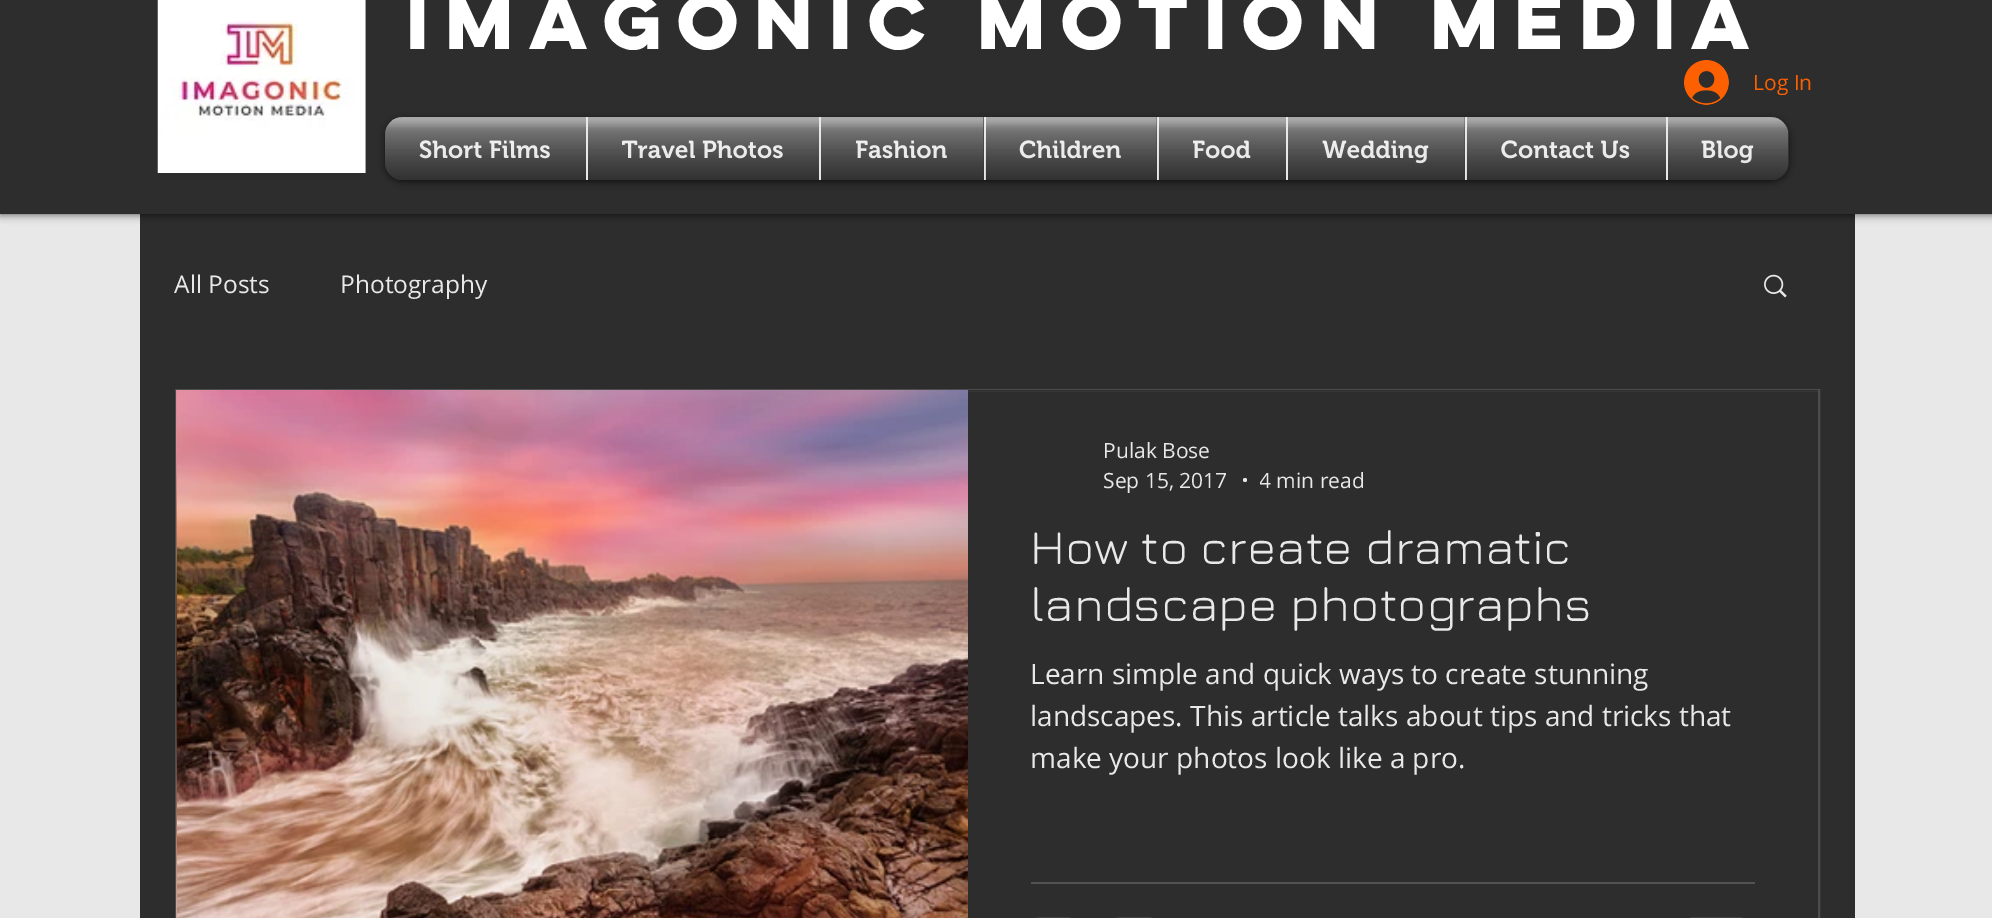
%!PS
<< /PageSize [1992 918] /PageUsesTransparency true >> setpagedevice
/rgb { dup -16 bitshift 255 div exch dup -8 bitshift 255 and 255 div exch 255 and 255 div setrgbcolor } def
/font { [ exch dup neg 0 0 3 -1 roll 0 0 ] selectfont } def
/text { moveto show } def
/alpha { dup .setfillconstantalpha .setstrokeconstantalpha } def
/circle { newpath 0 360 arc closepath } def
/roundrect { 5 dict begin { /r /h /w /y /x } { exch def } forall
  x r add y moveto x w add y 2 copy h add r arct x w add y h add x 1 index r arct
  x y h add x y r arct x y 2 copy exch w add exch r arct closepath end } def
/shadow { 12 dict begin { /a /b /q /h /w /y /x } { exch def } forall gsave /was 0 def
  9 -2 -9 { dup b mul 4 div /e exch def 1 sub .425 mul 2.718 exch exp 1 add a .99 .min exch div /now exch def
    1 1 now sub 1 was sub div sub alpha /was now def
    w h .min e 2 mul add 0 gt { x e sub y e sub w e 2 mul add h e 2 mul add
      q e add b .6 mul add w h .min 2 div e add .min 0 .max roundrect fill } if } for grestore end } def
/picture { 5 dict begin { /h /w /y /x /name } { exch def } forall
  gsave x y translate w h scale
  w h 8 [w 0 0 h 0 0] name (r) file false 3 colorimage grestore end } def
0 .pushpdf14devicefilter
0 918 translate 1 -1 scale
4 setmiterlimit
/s1 { /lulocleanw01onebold-Bold 70 font 16#FFFFFF rgb } def
/s2 { /OpenSans-Regular 21 font 16#FC6000 rgb } def
/s3 { /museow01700-SemiBold 24.5 font 16#FFFFFF rgb } def
/s4 { /OpenSans-Regular 24.5 font 16#E8E8E8 rgb } def
/s5 { /OpenSans-Regular 21 font 16#E8E8E8 rgb } def
/s6 { /Jura-Regular 49 font 16#E8E8E8 rgb } def
/s7 { /OpenSans-Regular 28 font 16#E8E8E8 rgb } def
16#E8E8E8 rgb
0 0 1992 918 rectfill
16#2D2D2D rgb
140 214 1715 704 rectfill
16#000000 rgb
0 -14 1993 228 0 4.5 0.7 shadow
16#2D2D2D rgb
0 0 1992 214 rectfill
(pic1.raw) 157 0 209 173 picture
s1
(IMAGONIC MOTION MEDIA) 406 49 text
(pic2.raw) 1684 60 45 45 picture
s2
(Log In) 1753 90 text
16#000000 rgb
385 119 1404 63 18 3.5 0.6 shadow
(pic3.raw) 385 117 1404 63 picture
(pic4.raw) 385 128 1402 52 picture
16#2D2D2D rgb
403 117 moveto 586 117 lineto 586 180 lineto 403 180 lineto 393 180 385 172 385 162 curveto 385 135 lineto 385 125 393 117 403 117 curveto closepath fill
s3
(Short Films) 419 158 text
(pic5.raw) 385 117 201 63 picture
(pic6.raw) 385 127 201 53 picture
16#2D2D2D rgb
588 117 231 63 rectfill
16#E8E8E8 rgb
586 117 2 63 rectfill
s3
(Travel Photos) 622 158 text
(pic7.raw) 588 117 231 63 picture
(pic8.raw) 588 127 231 53 picture
16#2D2D2D rgb
821 117 163 63 rectfill
16#E8E8E8 rgb
819 117 2 63 rectfill
s3
(Fashion) 855 158 text
(pic9.raw) 821 117 163 63 picture
(pic10.raw) 820 127 163 53 picture
16#2D2D2D rgb
986 117 171 63 rectfill
16#E8E8E8 rgb
984 117 2 63 rectfill
s3
(Children) 1019 158 text
(pic11.raw) 985 117 172 63 picture
(pic12.raw) 985 125 172 55 picture
16#2D2D2D rgb
1159 117 127 63 rectfill
16#E8E8E8 rgb
1157 117 2 63 rectfill
s3
(Food) 1192 158 text
(pic13.raw) 1158 117 128 63 picture
(pic14.raw) 1158 127 128 53 picture
16#2D2D2D rgb
1288 117 177 63 rectfill
16#E8E8E8 rgb
1286 117 2 63 rectfill
s3
(Wedding) 1322 158 text
(pic15.raw) 1288 117 177 63 picture
(pic16.raw) 1288 127 177 53 picture
16#2D2D2D rgb
1467 117 199 63 rectfill
16#E8E8E8 rgb
1465 117 2 63 rectfill
s3
(Contact Us) 1501 158 text
(pic17.raw) 1466 117 200 63 picture
(pic18.raw) 1466 127 200 53 picture
16#2D2D2D rgb
1666 117 moveto 1771 117 lineto 1781 117 1789 125 1789 135 curveto 1789 162 lineto 1789 172 1781 180 1771 180 curveto 1666 180 lineto closepath fill
16#E8E8E8 rgb
1666 117 2 63 rectfill
s3
(Blog) 1701 158 text
(pic19.raw) 1668 117 121 63 picture
(pic20.raw) 1668 127 120 53 picture
s4
(All Posts) 174 293 text
(Photography) 340 293 text
(pic21.raw) 1764 274 23 24 picture
16#4D4D4D rgb
2 setlinewidth
176 390 1643 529 rectstroke
(pic22.raw) 176 390 1 528 picture
(pic23.raw) 177 390 791 528 picture
16#2D2D2D rgb
968 390 850 1 rectfill
s5
(Pulak Bose) 1103 458 text
(Sep 15, 2017) 1103 488 text
1245 480 2 circle fill
gsave
1260 466 105 28 rectclip
(4 min read) 1259 488 text
grestore
s6
(How to create dramatic) 1030 564 text
(landscape photographs) 1030 621 text
s7
(Learn simple and quick ways to create stunning) 1030 684 text
(landscapes. This article talks about tips and tricks that) 1030 726 text
(make your photos look like a pro.) 1030 768 text
16#525252 rgb
1031 882 724 2 rectfill
16#434343 rgb
1031 917 45 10 9 roundrect fill
1111 917 46 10 9 roundrect fill
1685 917 63 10 9 roundrect fill
.poppdf14devicefilter showpage
